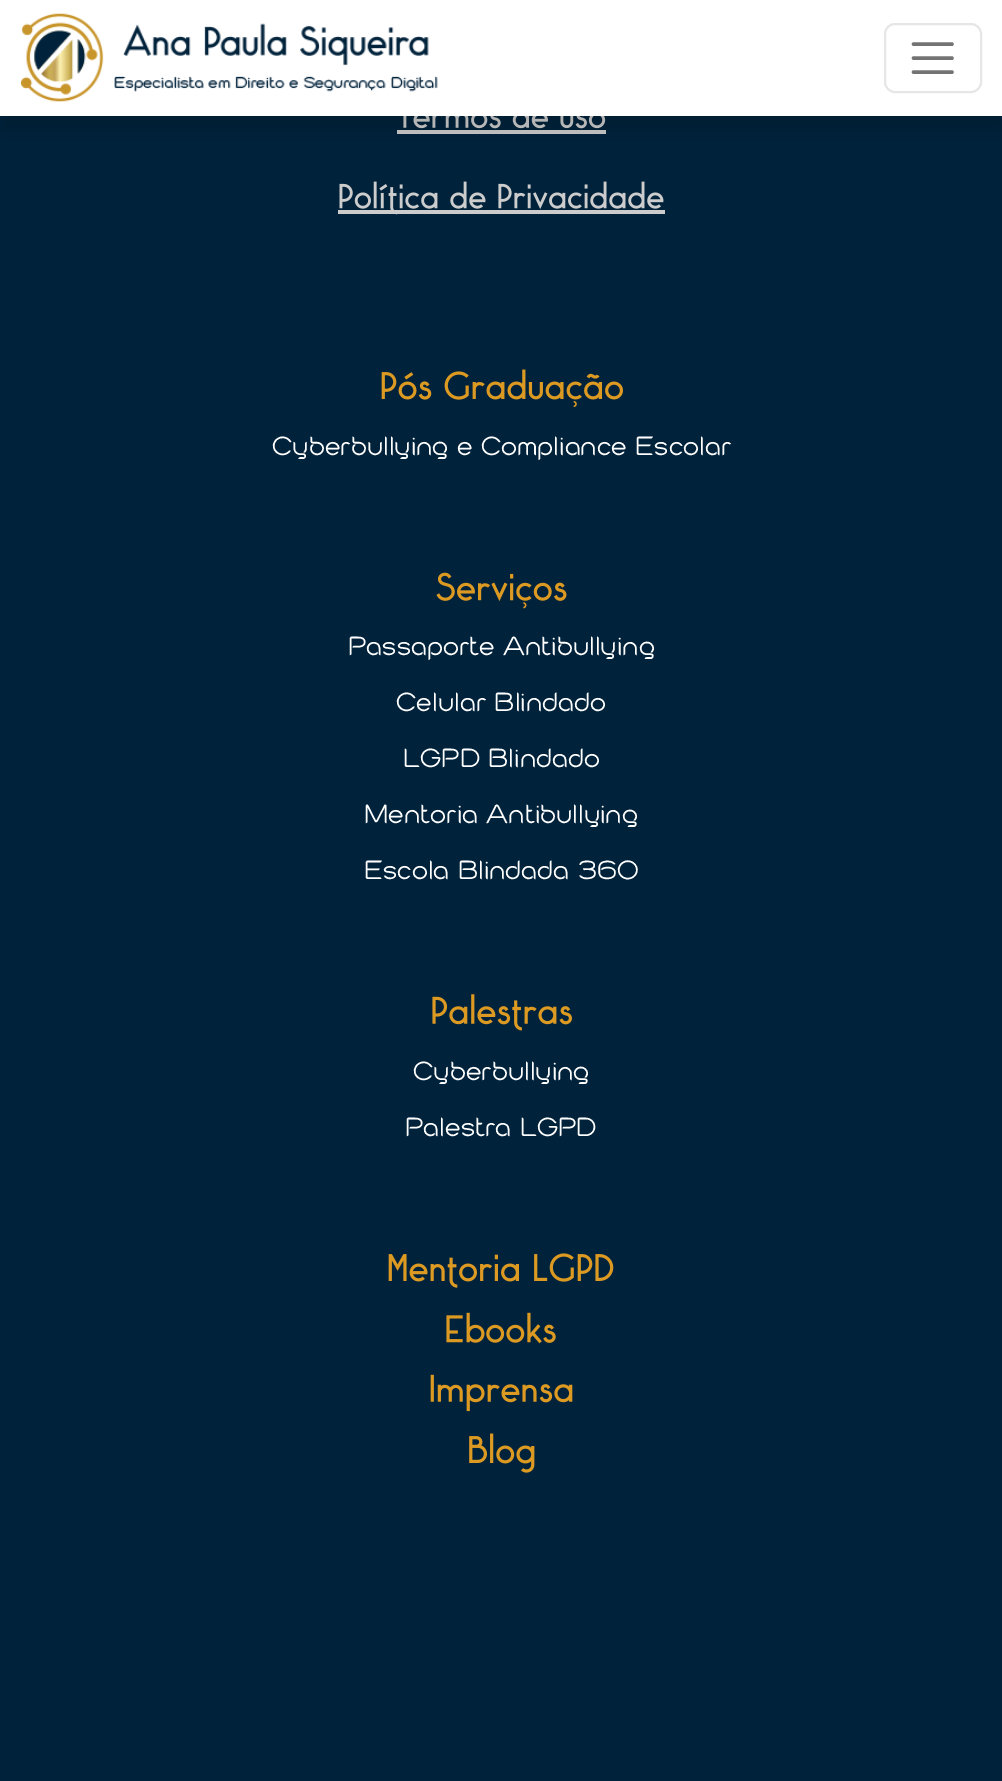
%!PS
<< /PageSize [1002 1781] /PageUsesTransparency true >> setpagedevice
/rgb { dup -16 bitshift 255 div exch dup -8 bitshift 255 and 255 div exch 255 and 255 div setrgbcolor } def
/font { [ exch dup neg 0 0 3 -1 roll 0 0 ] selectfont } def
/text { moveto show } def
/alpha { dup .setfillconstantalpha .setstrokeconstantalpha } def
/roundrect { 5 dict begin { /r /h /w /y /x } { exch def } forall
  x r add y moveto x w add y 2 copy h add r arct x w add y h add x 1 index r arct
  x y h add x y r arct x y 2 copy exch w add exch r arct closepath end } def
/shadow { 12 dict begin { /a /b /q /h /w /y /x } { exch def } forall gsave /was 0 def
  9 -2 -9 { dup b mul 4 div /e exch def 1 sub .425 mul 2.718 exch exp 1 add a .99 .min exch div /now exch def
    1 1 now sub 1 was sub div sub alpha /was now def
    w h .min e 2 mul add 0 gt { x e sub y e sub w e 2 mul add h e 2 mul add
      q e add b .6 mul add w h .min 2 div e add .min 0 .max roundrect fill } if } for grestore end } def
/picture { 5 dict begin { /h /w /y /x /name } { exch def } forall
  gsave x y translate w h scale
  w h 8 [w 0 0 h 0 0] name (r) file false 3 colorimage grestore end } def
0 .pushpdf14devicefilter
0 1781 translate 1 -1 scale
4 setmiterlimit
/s1 { /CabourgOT-Regular 28 font 16#FFFFFF rgb } def
16#00223B rgb
0 0 1002 1781 rectfill
(pic2.raw) 403 116 203 13 picture
16#CCCCCC rgb
397 130 209 4 rectfill
16#000000 rgb
0 14 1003 116 0 14 0.15 shadow
16#FFFFFF rgb
0 0 1002 116 rectfill
(pic1.raw) 21 13 417 89 picture
16#E6E6E6 rgb
2 setlinewidth
885 24 96 68 10 roundrect stroke
16#737373 rgb
3.5 setlinewidth
1 setlinecap
913.5 44 moveto 952 44 lineto 913.5 58 moveto 952 58 lineto 913.5 72 moveto 952 72 lineto stroke
16#CCCCCC rgb
338 210 327 4 rectfill
(pic3.raw) 339 181 325 34 picture
(pic4.raw) 381 369 242 39 picture
s1
(Cyberbullying e Compliance Escolar) 272 455 text
(pic5.raw) 436 572 131 37 picture
(Passaporte Antibullying) 348 655 text
(Celular Blindado) 396 711 text
(LGPD Blindado) 403 767 text
(Mentoria Antibullying) 364 823 text
(Escola Blindada 360) 364 879 text
(pic6.raw) 432 994 140 37 picture
(Cyberbullying) 413 1080 text
(Palestra LGPD) 405 1136 text
(pic7.raw) 388 1253 226 35 picture
(pic8.raw) 446 1312 110 32 picture
(pic9.raw) 430 1374 143 38 picture
(pic10.raw) 469 1433 66 40 picture
.poppdf14devicefilter showpage
